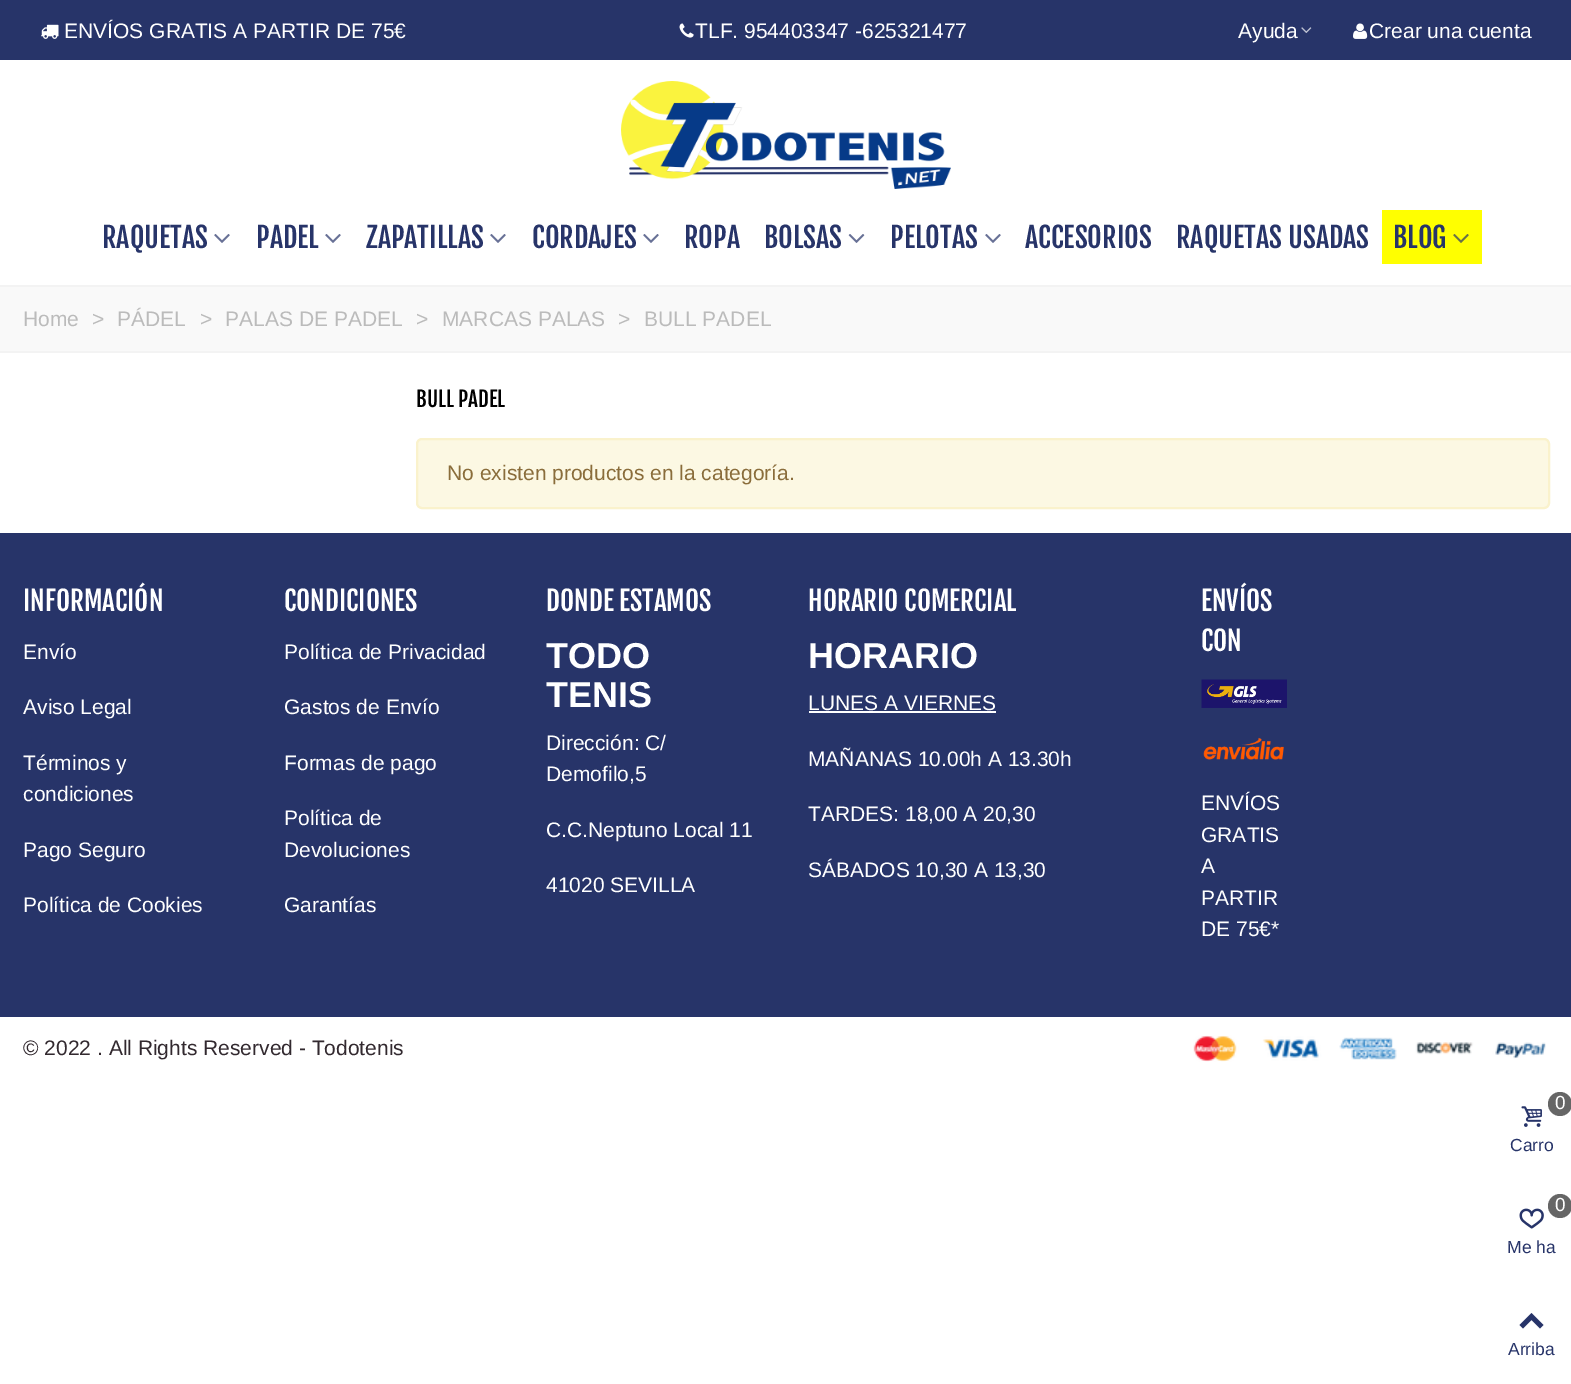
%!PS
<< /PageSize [1571 1384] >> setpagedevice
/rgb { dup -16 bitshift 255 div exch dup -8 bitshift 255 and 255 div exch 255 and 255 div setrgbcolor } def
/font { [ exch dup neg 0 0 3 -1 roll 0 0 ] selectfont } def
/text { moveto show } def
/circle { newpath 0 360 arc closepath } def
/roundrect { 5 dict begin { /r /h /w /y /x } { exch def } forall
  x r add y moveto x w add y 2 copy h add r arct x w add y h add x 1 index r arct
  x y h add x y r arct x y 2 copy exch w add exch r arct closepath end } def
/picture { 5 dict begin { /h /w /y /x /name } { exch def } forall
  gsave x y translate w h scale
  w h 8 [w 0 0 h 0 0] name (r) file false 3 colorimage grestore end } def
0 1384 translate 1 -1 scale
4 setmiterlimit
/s1 { /LiberationSans-Regular 21 font 16#FFFFFF rgb } def
/s2 { /FjallaOne-Regular 28 font 16#273469 rgb } def
/s3 { /LiberationSans-Regular 21 font 16#BBBBBB rgb } def
/s4 { /FjallaOne-Regular 21 font 16#000000 rgb } def
/s5 { /LiberationSans-Regular 21 font 16#8A6D3B rgb } def
/s6 { /FjallaOne-Regular 27 font 16#FFFFFF rgb } def
/s7 { /LiberationSans-Bold 36 font 16#FFFFFF rgb } def
/s8 { /LiberationSans-Regular 21 font 16#32292F rgb } def
/s9 { /LiberationSans-Regular 19 font 16#FFFFFF rgb } def
/s10 { /LiberationSans-Regular 17.5 font 16#273469 rgb } def
16#FFFFFF rgb
0 0 1571 1384 rectfill
16#273469 rgb
0 0 1571 60 rectfill
(pic1.raw) 41 24 18 15 picture
s1
(ENVÍOS GRATIS A PARTIR DE 75€) 64 38 text
(pic2.raw) 679 23 15 15 picture
(TLF. 954403347 -625321477) 695 38 text
(Ayuda) 1238 38 text
(pic3.raw) 1301 27 11 6 picture
(pic4.raw) 1353 23 15 16 picture
(Crear una cuenta) 1369 38 text
(pic5.raw) 621 81 330 108 picture
s2
(RAQUETAS) 102 248 text
(pic6.raw) 214 234 16 9 picture
(PADEL) 256 248 text
(pic6.raw) 325 234 16 9 picture
(ZAPATILLAS) 366 248 text
(pic6.raw) 490 234 16 9 picture
(CORDAJES) 532 248 text
(pic6.raw) 643 234 16 9 picture
(ROPA) 684 248 text
(BOLSAS) 764 248 text
(pic7.raw) 848 234 17 9 picture
(PELOTAS) 890 248 text
(pic6.raw) 985 234 16 9 picture
(ACCESORIOS) 1025 248 text
(RAQUETAS USADAS) 1176 248 text
16#FFFF00 rgb
1382 210 100 54 rectfill
s2
(BLOG) 1393 248 text
(pic8.raw) 1453 234 16 9 picture
16#F9F9F9 rgb
0 287 1571 64 rectfill
16#F3F3F3 rgb
0 285 1571 2 rectfill
0 351 1571 2 rectfill
s3
(Home) 23 326 text
(>) 92 326 text
(PÁDEL) 117 326 text
(>) 200 326 text
(PALAS DE PADEL) 225 326 text
(>) 416 326 text
(MARCAS PALAS) 442 326 text
(>) 618 326 text
(BULL PADEL) 644 326 text
s4
(BULL PADEL) 416 407 text
16#FCF8E3 rgb
417 439 1132 69 5 roundrect gsave fill grestore
16#FAF2CC rgb
2 setlinewidth
stroke
s5
(No existen productos en la categoría.) 447 480 text
16#273469 rgb
0 533 1571 484 rectfill
s6
(INFORMACIÓN) 23 611 text
s1
(Envío) 23 659 text
(Aviso Legal) 23 714 text
(Términos y) 23 770 text
(condiciones) 23 801 text
(Pago Seguro) 23 857 text
(Política de Cookies) 23 912 text
s6
(CONDICIONES) 284 611 text
s1
(Política de Privacidad) 284 659 text
(Gastos de Envío) 284 714 text
(Formas de pago) 284 770 text
(Política de) 284 825 text
(Devoluciones) 284 857 text
(Garantías) 284 912 text
s6
(DONDE ESTAMOS) 546 611 text
s7
(TODO) 546 668 text
(TENIS) 546 707 text
s1
(Dirección: C/) 546 750 text
(Demofilo,5) 546 781 text
(C.C.Neptuno Local 11) 546 837 text
(41020 SEVILLA) 546 892 text
s6
(HORARIO COMERCIAL) 808 611 text
s7
(HORARIO) 808 668 text
s1
(LUNES A VIERNES) 808 710 text
809 711 187 2 rectfill
(MAÑANAS 10.00h A 13.30h) 808 766 text
(TARDES: 18,00 A 20,30) 808 821 text
(SÁBADOS 10,30 A 13,30) 808 877 text
s6
(ENVÍOS) 1201 611 text
(CON) 1201 651 text
(pic9.raw) 1201 679 86 29 picture
(pic10.raw) 1203 737 81 23 picture
s1
(ENVÍOS) 1201 810 text
(GRATIS) 1201 842 text
(A) 1201 873 text
(PARTIR) 1201 905 text
(DE 75€*) 1201 936 text
s8
(© 2022 . All Rights Reserved - Todotenis) 23 1055 text
(pic11.raw) 1193 1035 353 27 picture
16#666666 rgb
1560 1104 12 circle fill
s9
(0) 1555 1109 text
(pic12.raw) 1521 1106 21 21 picture
s10
(Carro) 1510 1151 text
16#666666 rgb
1560 1206 12 circle fill
s9
(0) 1555 1211 text
(pic13.raw) 1519 1208 25 21 picture
s10
(Me ha) 1507 1253 text
1519.5 1325 moveto 1531.5 1313 lineto 1543.5 1325 lineto 1540 1328.5 lineto 1531.5 1320 lineto 1523 1328.5 lineto closepath fill
(Arriba) 1508 1355 text
showpage
